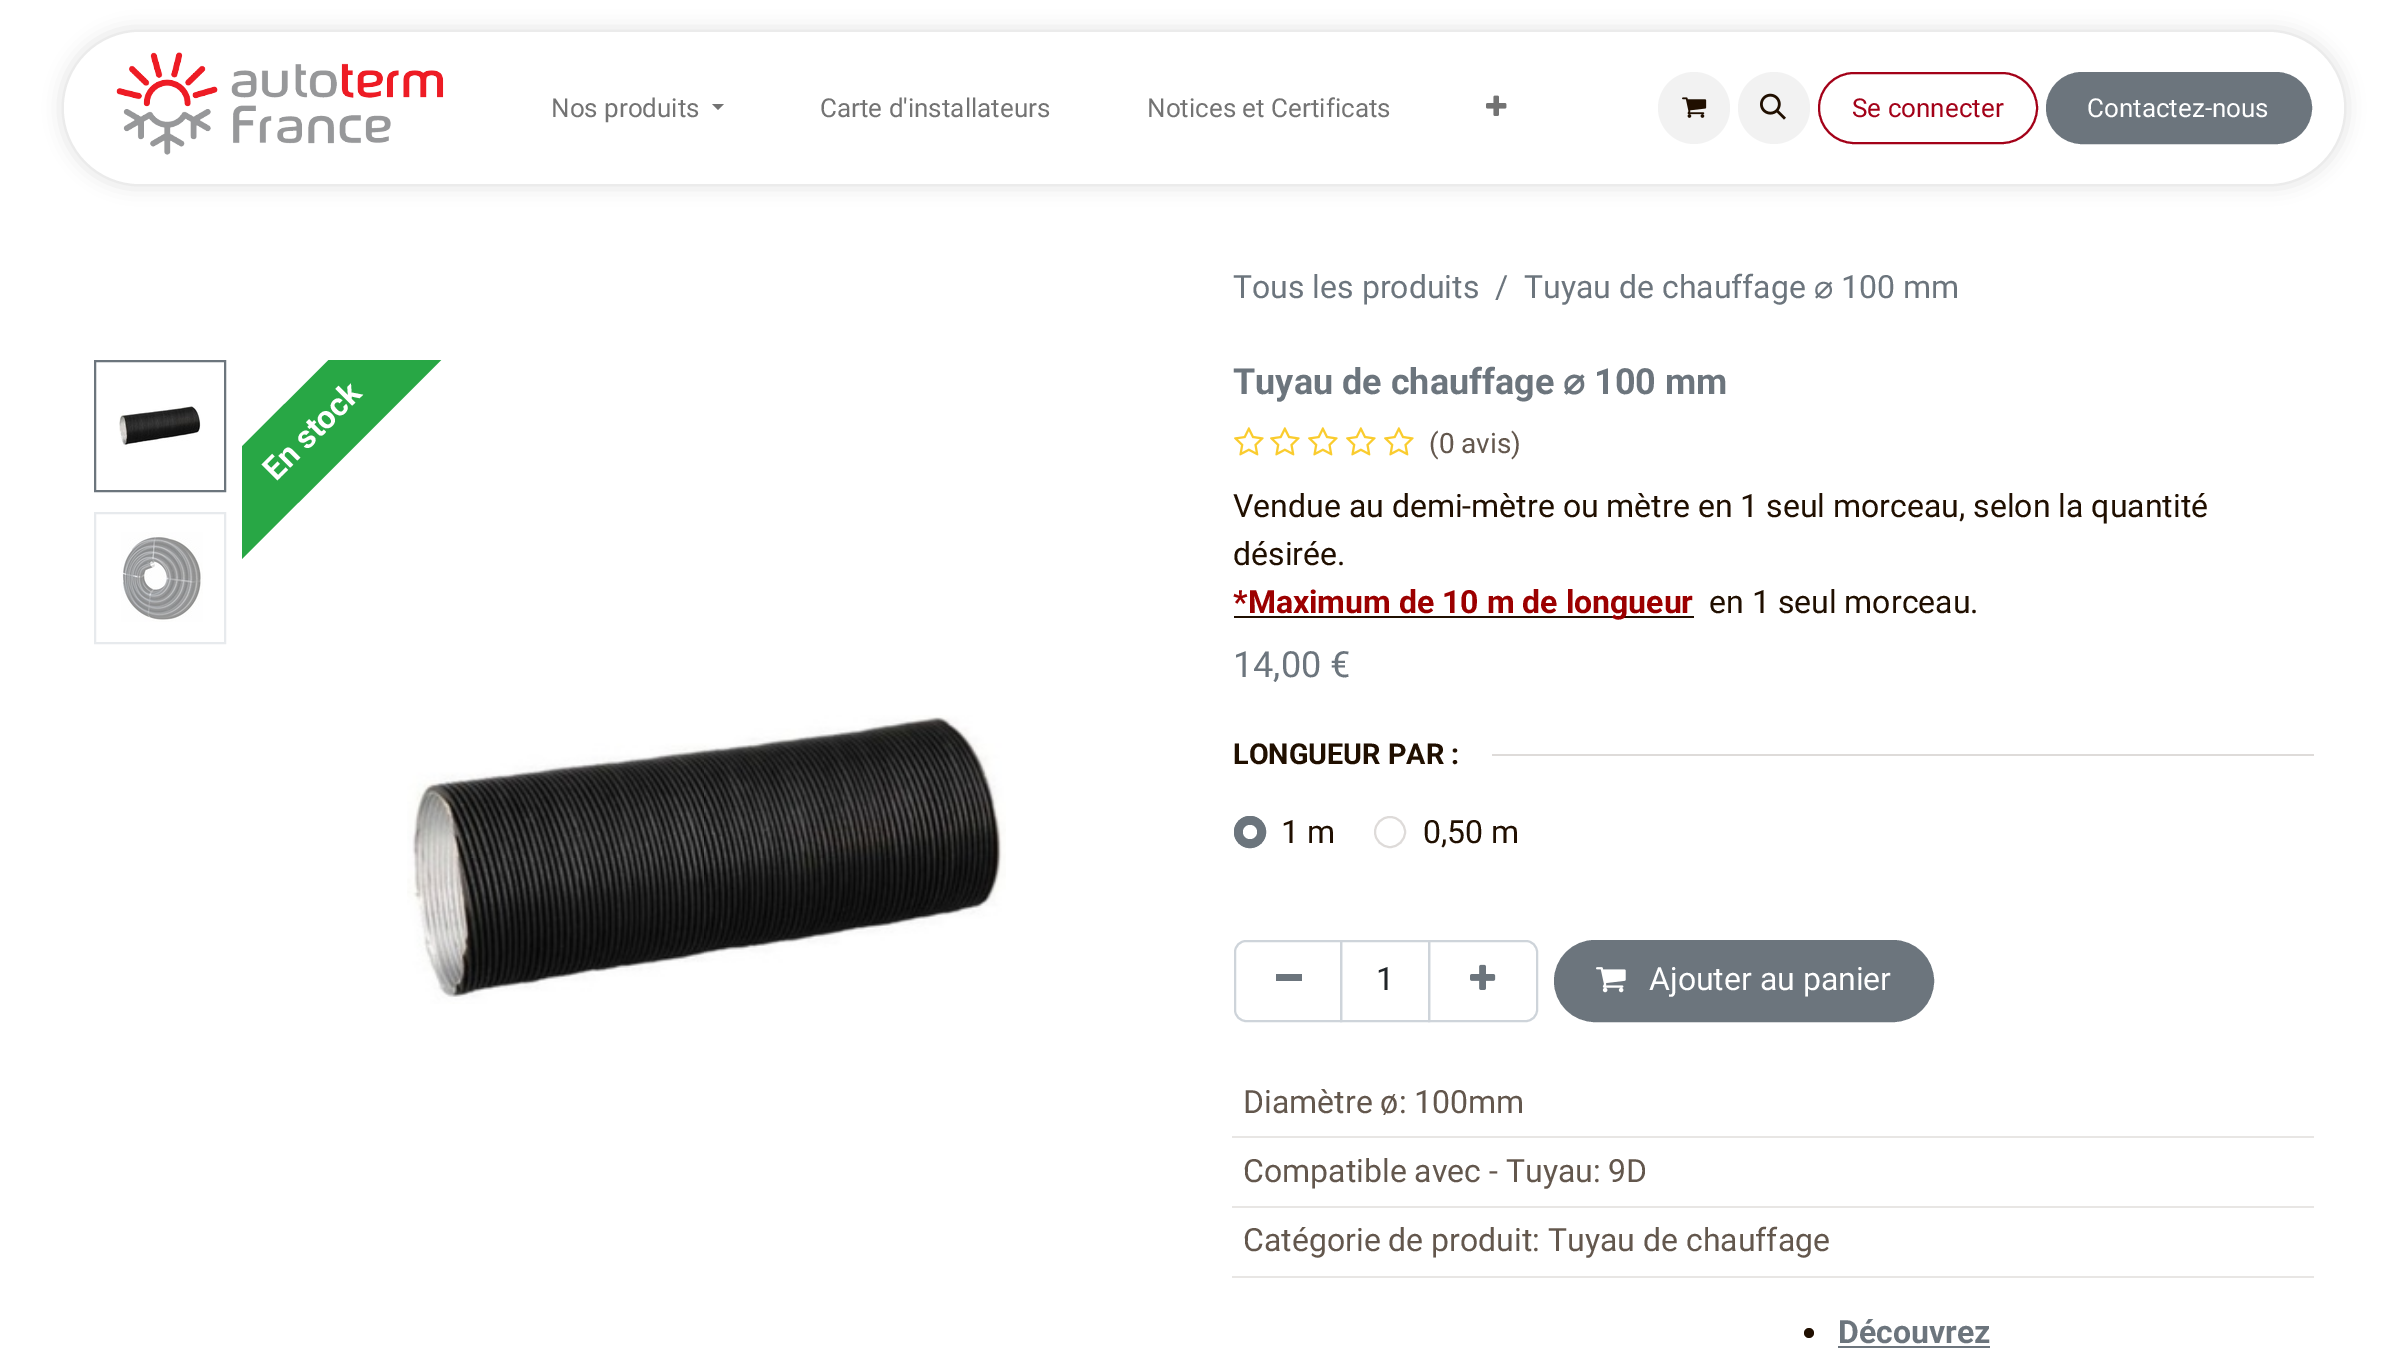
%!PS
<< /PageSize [2405 1368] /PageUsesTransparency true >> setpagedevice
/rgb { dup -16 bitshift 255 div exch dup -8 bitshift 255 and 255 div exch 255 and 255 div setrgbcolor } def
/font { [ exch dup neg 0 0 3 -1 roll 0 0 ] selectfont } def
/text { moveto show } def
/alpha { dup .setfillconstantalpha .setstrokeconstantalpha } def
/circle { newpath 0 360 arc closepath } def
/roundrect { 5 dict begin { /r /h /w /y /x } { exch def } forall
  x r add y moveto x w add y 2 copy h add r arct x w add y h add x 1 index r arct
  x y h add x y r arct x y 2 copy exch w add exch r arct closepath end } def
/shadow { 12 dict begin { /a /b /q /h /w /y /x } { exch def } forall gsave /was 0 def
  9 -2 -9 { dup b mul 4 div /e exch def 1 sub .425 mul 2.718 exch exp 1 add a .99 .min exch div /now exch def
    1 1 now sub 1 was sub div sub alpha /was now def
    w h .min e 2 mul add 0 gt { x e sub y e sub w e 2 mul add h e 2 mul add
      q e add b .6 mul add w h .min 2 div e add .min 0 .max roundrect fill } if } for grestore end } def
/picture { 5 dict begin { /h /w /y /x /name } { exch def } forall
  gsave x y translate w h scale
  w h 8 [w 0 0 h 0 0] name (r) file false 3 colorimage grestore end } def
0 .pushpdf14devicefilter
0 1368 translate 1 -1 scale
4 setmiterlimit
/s1 { /Roboto-Regular 26 font 16#737373 rgb } def
/s2 { /Roboto-Regular 26 font 16#A30118 rgb } def
/s3 { /Roboto-Regular 26 font 16#FFFFFF rgb } def
/s4 { /Roboto-Regular 32 font 16#6C757D rgb } def
/s5 { /DejaVuSans-Regular 32 font 16#6C757D rgb } def
/s6 { /Roboto-Bold 36 font 16#6C757D rgb } def
/s7 { /DejaVuSans-Bold 36 font 16#6C757D rgb } def
/s8 { /Roboto-Regular 28 font 16#63574D rgb } def
/s9 { /Roboto-Regular 32 font 16#200F00 rgb } def
/s10 { /Roboto-Bold 32 font 16#9C0000 rgb } def
/s11 { /Roboto-Regular 36 font 16#6C757D rgb } def
/s12 { /Roboto-Bold 28.75 font 16#200F00 rgb } def
/s13 { /Roboto-Regular 32 font 16#212529 rgb } def
/s14 { /Roboto-Regular 32 font 16#FFFFFF rgb } def
/s15 { /Roboto-Regular 32 font 16#63574D rgb } def
/s16 { /Roboto-Bold 32 font 16#6C757D rgb } def
16#FFFFFF rgb
0 0 2405 1368 rectfill
16#000000 rgb
64 32 2280 152 76 10 0.15 shadow
16#FFFFFF rgb
64 32 2280 152 76 roundrect fill
(pic1.raw) 116 52 328 103 picture
s1
(Nos produits) 551 117 text
712 104 moveto 724 104 lineto 718 110 lineto closepath fill
(Carte d'installateurs) 820 117 text
(Notices et Certificats) 1147 117 text
(pic2.raw) 1486 95 21 21 picture
16#F2F2F2 rgb
1694 108 36 circle fill
(pic3.raw) 1682 97 25 21 picture
1774 108 36 circle fill
(pic4.raw) 1760 93 26 27 picture
16#A30118 rgb
2 setlinewidth
1819 73 218 70 35 roundrect stroke
(Se connecter) 1852 117 text
16#6C757D rgb
2047 73 264 70 35 roundrect gsave fill grestore
stroke
s3
(Contactez-nous) 2087 117 text
s4
(Tous les produits) 1233 298 text
(/) 1495 298 text
(Tuyau de chauffage) 1524 298 text
s5
(⌀) 1814 298 text
s4
(100 mm) 1841 298 text
95 361 130 130 rectstroke
(pic5.raw) 119 406 82 41 picture
16#E7EAED rgb
95 513 130 130 rectstroke
(pic6.raw) 121 532 82 90 picture
gsave
242 360 932 1000 rectclip
16#28A745 rgb
100 588 moveto 470 219 lineto 526 275 lineto 156 645 lineto closepath fill
grestore
/Roboto-Bold 32 font
16#FFFFFF rgb
gsave 276 482 translate -45 rotate 0 0 moveto (En stock) show grestore
(pic7.raw) 407 715 599 289 picture
s6
(Tuyau de chauffage) 1233 394 text
s7
(⌀) 1563 394 text
s6
(100 mm) 1594 394 text
(pic8.raw) 1234 427 30 29 picture
(pic8.raw) 1270 427 30 29 picture
(pic8.raw) 1308 427 30 29 picture
(pic8.raw) 1346 427 30 29 picture
(pic8.raw) 1384 427 30 29 picture
s8
(\(0 avis\)) 1429 453 text
s9
(Vendue au demi-mètre ou mètre en 1 seul morceau, selon la quantité) 1233 517 text
(désirée.) 1233 565 text
1234 616 460 2 rectfill
s10
(*Maximum de 10 m de longueur) 1233 613 text
s9
(en 1 seul morceau.) 1709 613 text
s11
(14,00 €) 1233 677 text
s12
(LONGUEUR PAR :) 1233 764 text
16#DEDBD9 rgb
1492 754 822 2 rectfill
16#6C757D rgb
1250 832 16 circle fill
16#FFFFFF rgb
1250 832 7 circle fill
16#6C757D rgb
1250 832 15 circle stroke
s9
(1 m) 1281 843 text
16#DEDBD9 rgb
1390 832 15 circle stroke
s9
(0,50 m) 1423 843 text
16#CED4DA rgb
1341 941 88 80 rectstroke
1246 941 moveto 1341 941 lineto 1341 1021 lineto 1246 1021 lineto 1240 1021 1235 1016 1235 1010 curveto 1235 952 lineto 1235 946 1240 941 1246 941 curveto closepath stroke
16#6C757D rgb
1276 974 26 7 rectfill
s13
(1) 1376 990 text
16#CED4DA rgb
1429 941 moveto 1526 941 lineto 1532 941 1537 946 1537 952 curveto 1537 1010 lineto 1537 1016 1532 1021 1526 1021 curveto 1429 1021 lineto closepath stroke
(pic9.raw) 1470 964 26 26 picture
16#6C757D rgb
1555 941 378 80 40 roundrect gsave fill grestore
stroke
(pic10.raw) 1596 967 30 26 picture
s14
(Ajouter au panier) 1649 990 text
16#E8E6E4 rgb
1232 1136 1082 2 rectfill
s15
(Diamètre ø: 100mm) 1243 1113 text
16#E8E6E4 rgb
1232 1206 1082 2 rectfill
s15
(Compatible avec - Tuyau: 9D) 1243 1182 text
16#E8E6E4 rgb
1232 1276 1082 2 rectfill
s15
(Catégorie de produit: Tuyau de chauffage) 1243 1251 text
16#200F00 rgb
1809 1333 5 circle fill
s16
(Découvrez) 1838 1343 text
1838 1346 152 2 rectfill
.poppdf14devicefilter showpage
